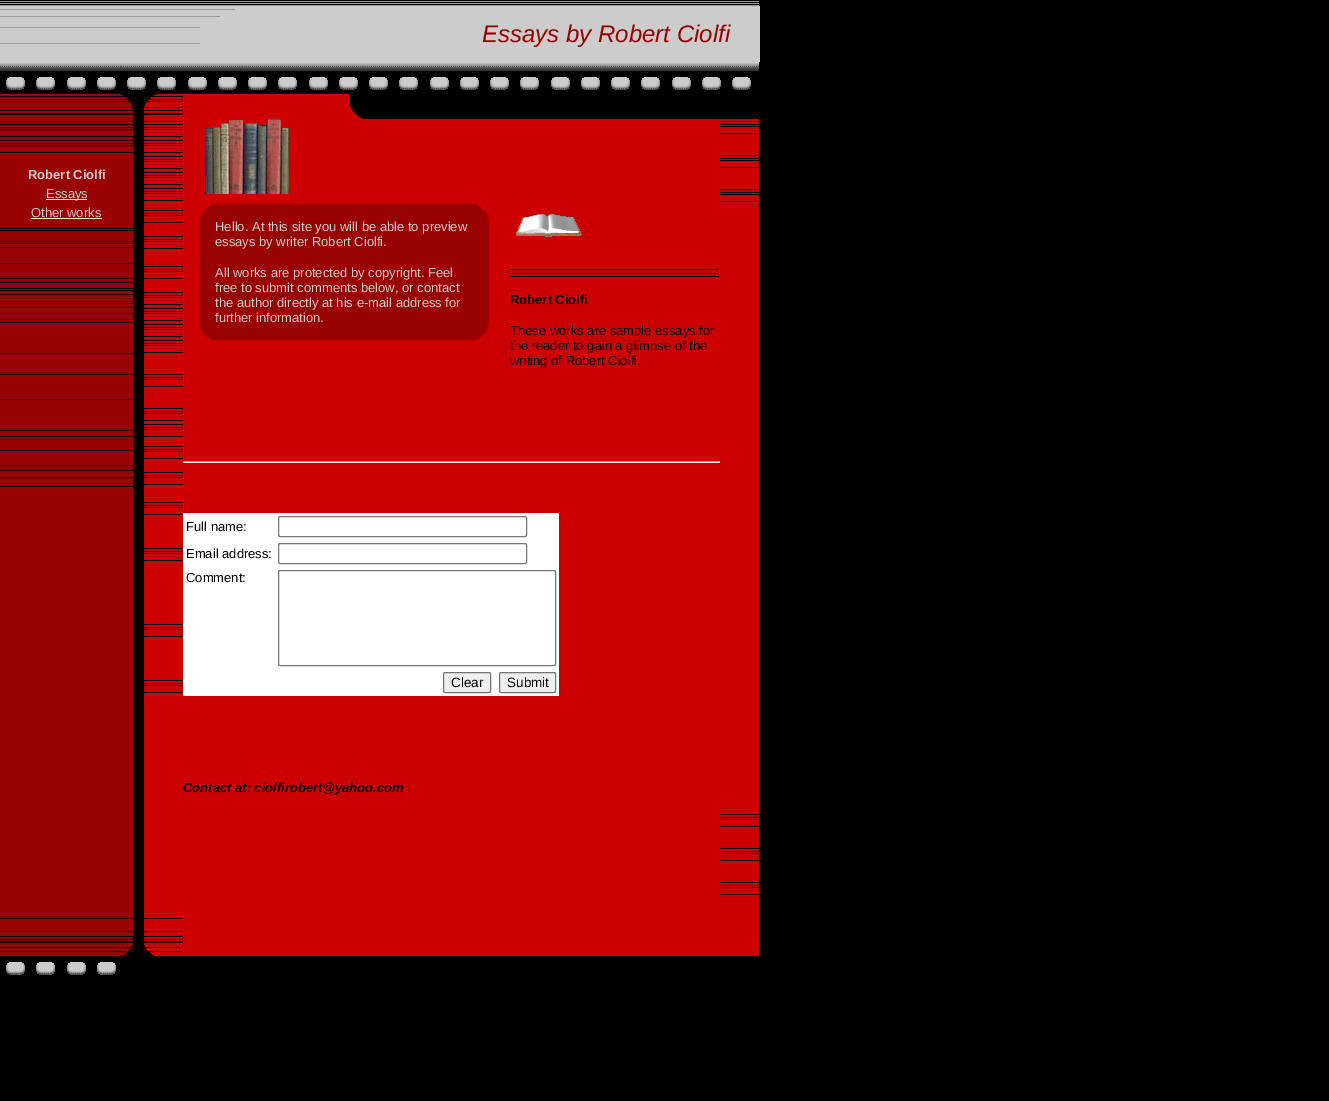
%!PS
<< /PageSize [1329 1101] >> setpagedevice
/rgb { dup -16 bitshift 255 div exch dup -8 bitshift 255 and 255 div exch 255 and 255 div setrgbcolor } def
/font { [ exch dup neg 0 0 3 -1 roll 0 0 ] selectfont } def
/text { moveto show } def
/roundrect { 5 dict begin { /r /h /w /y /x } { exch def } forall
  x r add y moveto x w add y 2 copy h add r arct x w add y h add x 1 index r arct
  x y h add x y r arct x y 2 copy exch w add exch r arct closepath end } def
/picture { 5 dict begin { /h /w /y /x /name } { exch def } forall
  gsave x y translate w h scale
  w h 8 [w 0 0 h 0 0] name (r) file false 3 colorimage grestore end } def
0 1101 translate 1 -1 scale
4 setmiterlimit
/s1 { /LiberationSans-Italic 24 font 16#990000 rgb } def
/s2 { /LiberationSans-Bold 13 font 16#CCCCCC rgb } def
/s3 { /LiberationSans-Regular 13 font 16#CCCCCC rgb } def
/s4 { /LiberationSans-Bold 13 font 16#000000 rgb } def
/s5 { /LiberationSans-Regular 13 font 16#000000 rgb } def
/s6 { /LiberationSans-Regular 13.5 font 16#000000 rgb } def
/s7 { /LiberationSans-BoldItalic 13 font 16#000000 rgb } def
16#000000 rgb
0 0 1329 1101 rectfill
16#999999 rgb
0 1 759 1 rectfill
0 3 759 1 rectfill
0 5 759 1 rectfill
16#CCCCCC rgb
0 6 760 56 rectfill
16#999999 rgb
0 9 235 1 rectfill
0 16 220 1 rectfill
0 27 200 1 rectfill
0 43 200 1 rectfill
s1
(Essays by Robert Ciolfi) 482 42 text
(pic1.raw) 0 62 759 9 picture
(pic2.raw) 6 77 745 13 picture
0 122 133 796 rectfill
(pic3.raw) 0 94 133 28 picture
(pic4.raw) 0 124 133 13 picture
(pic4.raw) 0 140 133 13 picture
s2
(Robert Ciolfi) 28 179 text
16#FFFF99 rgb
46 199 41 1 rectfill
s3
(Essays) 46 198 text
(Other works) 31 217 text
16#FFFF99 rgb
31 218 71 1 rectfill
16#000000 rgb
0 228 133 1 rectfill
0 230 133 1 rectfill
0 241 133 1 rectfill
0 243 133 1 rectfill
0 247 133 1 rectfill
0 263 133 1 rectfill
0 278 133 1 rectfill
0 282 133 1 rectfill
0 288 133 1 rectfill
0 290 133 1 rectfill
0 294 133 1 rectfill
0 301 133 1 rectfill
0 303 133 1 rectfill
0 307 133 1 rectfill
0 313 133 1 rectfill
0 319 133 1 rectfill
0 322 133 1 rectfill
0 353 133 1 rectfill
0 374 133 1 rectfill
0 399 133 1 rectfill
0 430 133 1 rectfill
0 436 133 1 rectfill
0 439 133 1 rectfill
0 450 133 1 rectfill
0 465 133 1 rectfill
0 470 133 1 rectfill
0 477 133 1 rectfill
0 483 133 1 rectfill
0 486 133 1 rectfill
16#CC0000 rgb
144 94 615 862 rectfill
(pic5.raw) 144 94 39 28 picture
(pic6.raw) 144 124 39 13 picture
(pic6.raw) 144 140 39 13 picture
(pic6.raw) 144 156 39 13 picture
(pic6.raw) 144 172 39 13 picture
(pic6.raw) 144 188 39 13 picture
(pic6.raw) 144 210 39 13 picture
(pic6.raw) 144 236 39 13 picture
(pic6.raw) 144 266 39 13 picture
(pic6.raw) 144 292 39 13 picture
(pic6.raw) 144 308 39 13 picture
(pic6.raw) 144 324 39 13 picture
(pic6.raw) 144 340 39 13 picture
(pic6.raw) 144 374 39 13 picture
(pic6.raw) 144 408 39 13 picture
(pic6.raw) 144 424 39 13 picture
(pic6.raw) 144 446 39 13 picture
(pic6.raw) 144 472 39 13 picture
(pic6.raw) 144 502 39 13 picture
(pic6.raw) 144 548 39 13 picture
(pic6.raw) 144 624 39 13 picture
(pic6.raw) 144 680 39 13 picture
16#000000 rgb
349 94 410 25 rectfill
(pic7.raw) 349 100 15 19 picture
(pic6.raw) 720 121 39 13 picture
(pic6.raw) 720 155 39 13 picture
(pic6.raw) 720 189 39 13 picture
(pic8.raw) 205 119 84 75 picture
(pic9.raw) 200 204 15 15 picture
16#990000 rgb
215 204 259 15 rectfill
(pic10.raw) 474 204 14 15 picture
200 219 289 106 rectfill
s3
(Hello. At this site you will be able to preview) 215 231 text
(essays by writer Robert Ciolfi.) 215 246 text
(All works are protected by copyright. Feel) 215 277 text
(free to submit comments below, or contact) 215 292 text
(the author directly at his e-mail address for) 215 307 text
(further information.) 215 322 text
(pic11.raw) 200 325 15 15 picture
16#990000 rgb
215 325 259 15 rectfill
(pic12.raw) 474 325 14 15 picture
(pic13.raw) 516 214 66 23 picture
16#000000 rgb
510 269 209 1 rectfill
510 273 209 1 rectfill
510 276 209 1 rectfill
s4
(Robert Ciolfi) 510 304 text
s5
(These works are sample essays for) 510 335 text
(the reader to gain a glimpse of the) 510 350 text
(writing of Robert Ciolfi.) 510 365 text
16#9F9F9F rgb
183 461 537 1 rectfill
16#EEEEEE rgb
719 461 1 2 rectfill
183 462 537 1 rectfill
16#9F9F9F rgb
183 461 1 2 rectfill
16#FFFFFF rgb
183 513 376 183 rectfill
s5
(Full name:) 186 531 text
16#767676 rgb
278.5 516.5 248 20 1.5 roundrect stroke
s5
(Email address:) 186 558 text
16#767676 rgb
278.5 543.5 248 20 1.5 roundrect stroke
s5
(Comment:) 186 582 text
16#767676 rgb
278.5 570.5 277 95 1.5 roundrect stroke
16#EFEFEF rgb
443.5 672.5 47 20 1.5 roundrect gsave fill grestore
16#767676 rgb
stroke
s6
(Clear) 451 687 text
16#EFEFEF rgb
499.5 672.5 56 20 1.5 roundrect gsave fill grestore
16#767676 rgb
stroke
s6
(Submit) 507 687 text
s7
(Contact at: ciolfirobert@yahoo.com) 183 792 text
(pic6.raw) 720 814 39 13 picture
(pic6.raw) 720 848 39 13 picture
(pic6.raw) 720 882 39 13 picture
(pic14.raw) 0 918 133 38 picture
(pic15.raw) 144 918 39 38 picture
(pic16.raw) 6 962 110 13 picture
showpage
